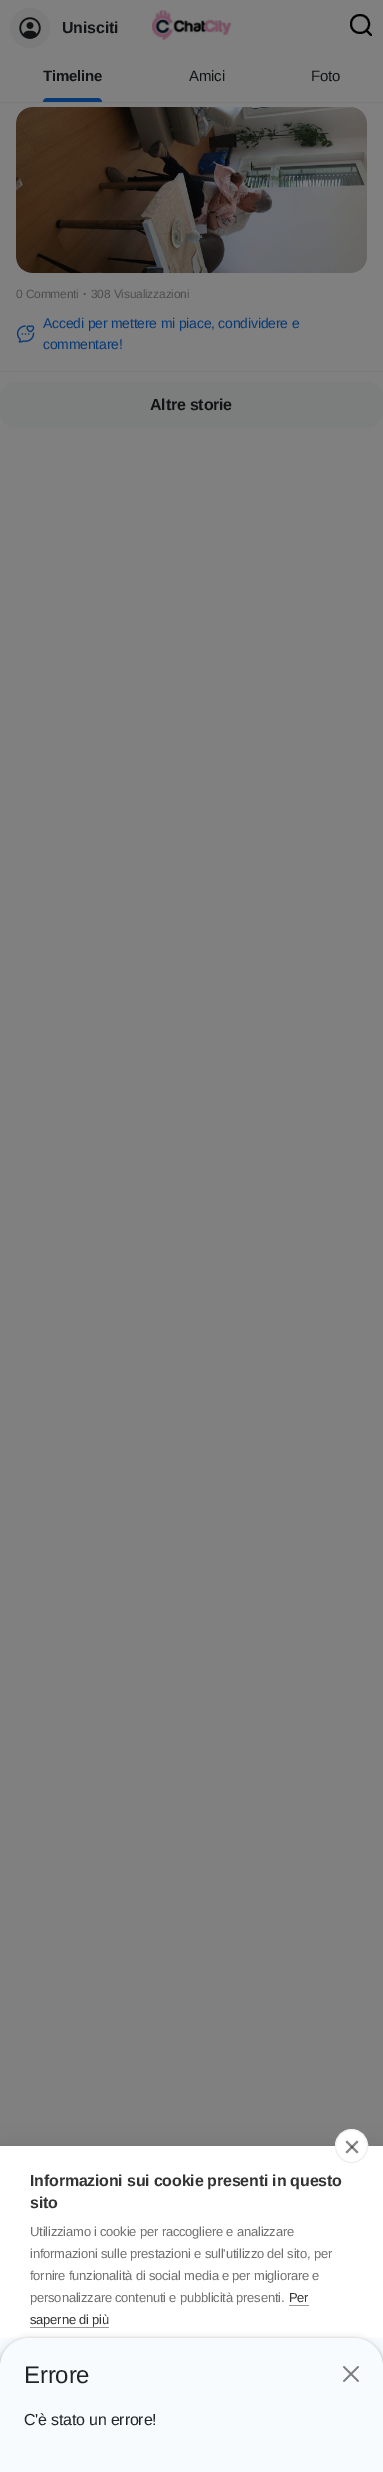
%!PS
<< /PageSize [383 2472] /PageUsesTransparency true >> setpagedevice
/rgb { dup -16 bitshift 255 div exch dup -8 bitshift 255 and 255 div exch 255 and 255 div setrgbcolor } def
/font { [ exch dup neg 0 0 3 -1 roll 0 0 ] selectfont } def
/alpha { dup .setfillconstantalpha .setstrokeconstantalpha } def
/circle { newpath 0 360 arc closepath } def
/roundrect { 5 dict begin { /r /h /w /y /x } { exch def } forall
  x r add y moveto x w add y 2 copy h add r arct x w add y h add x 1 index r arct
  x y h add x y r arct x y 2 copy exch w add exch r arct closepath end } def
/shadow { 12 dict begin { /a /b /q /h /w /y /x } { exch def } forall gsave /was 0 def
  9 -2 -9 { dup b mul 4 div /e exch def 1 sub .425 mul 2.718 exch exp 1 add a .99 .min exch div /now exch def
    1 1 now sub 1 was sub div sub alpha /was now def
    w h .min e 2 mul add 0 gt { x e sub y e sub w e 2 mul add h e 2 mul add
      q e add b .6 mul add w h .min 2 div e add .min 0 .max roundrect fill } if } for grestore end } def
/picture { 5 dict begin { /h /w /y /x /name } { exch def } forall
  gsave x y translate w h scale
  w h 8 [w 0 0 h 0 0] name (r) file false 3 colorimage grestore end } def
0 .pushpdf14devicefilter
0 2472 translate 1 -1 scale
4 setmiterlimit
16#808080 rgb
0 0 383 2472 rectfill
16#7B7B7B rgb
30 28 20 circle fill
(pic1.raw) 19 17 22 22 picture
/LiberationSans-Bold 16 font
16#111315 rgb
62 33 moveto -0.2 0 (Unisciti) ashow
(pic2.raw) 152 10 80 30 picture
16#787A7A rgb
0 102 383 1 rectfill
/LiberationSans-Bold 15 font
16#111315 rgb
43 81 moveto -0.2 0 (Timeline) ashow
16#073975 rgb
47 98 moveto 98 98 lineto 100 98 102 100 102 102 curveto 43 102 lineto 43 100 45 98 47 98 curveto closepath fill
/LiberationSans-Regular 15 font
16#111315 rgb
189 81 moveto -0.2 0 (Amici) ashow
311 81 moveto -0.2 0 (Foto) ashow
16#787A7A rgb
0 371 383 1 rectfill
16#7B7B7B rgb
16 107 351 166 16 roundrect fill
(pic3.raw) 16 107 351 166 picture
/LiberationSans-Regular 12 font
16#4D4D4D rgb
16 298 moveto -0.2 0 (0 Commenti) ashow
/LiberationSans-Bold 12 font
83 298 moveto -0.2 0 (·) ashow
/LiberationSans-Regular 12 font
91 298 moveto -0.2 0 (308 Visualizzazioni) ashow
(pic4.raw) 16 325 19 18 picture
/LiberationSans-Regular 14 font
16#073975 rgb
43 328 moveto -0.2 0 (Accedi per mettere mi piace, condividere e) ashow
43 349 moveto -0.2 0 (commentare!) ashow
16#7C7D7D rgb
0 382 383 46 16 roundrect fill
/LiberationSans-Bold 16 font
16#111315 rgb
150 410 moveto -0.2 0 (Altre storie) ashow
16#000000 rgb
2 setlinewidth
1 setlinecap
1 setlinejoin
366.5 30.5 moveto 371 35 lineto stroke
0 setlinecap
369 24 moveto 369 12 351 12 351 24 curveto 351 36 369 36 369 24 curveto closepath stroke
0 2146 383 326 0 10 0.1 shadow
16#FFFFFF rgb
0 2146 383 221 rectfill
335.5 2129.5 32 33 16 roundrect gsave fill grestore
16#EEEEEE rgb
1 setlinewidth
0 setlinejoin
stroke
16#858585 rgb
345.5 2152 moveto 357 2140.5 lineto 358.5 2142 lineto 347 2153.5 lineto closepath fill
0.6 alpha
16#333333 rgb
347 2140.5 moveto 358.5 2152 lineto 357 2153.5 lineto 345.5 2142 lineto closepath fill
1 alpha
30 2186 moveto -0.2 0 (Informazioni sui cookie presenti in questo) ashow
30 2208 moveto -0.2 0 (sito) ashow
/LiberationSans-Regular 13 font
16#707070 rgb
30 2236 moveto -0.2 0 (Utilizziamo i cookie per raccogliere e analizzare) ashow
30 2258 moveto -0.2 0 (informazioni sulle prestazioni e sull'utilizzo del sito, per) ashow
30 2280 moveto -0.2 0 (fornire funzionalità di social media e per migliorare e) ashow
30 2302 moveto -0.2 0 (personalizzare contenuti e pubblicità presenti.) ashow
16#333333 rgb
289 2302 moveto -0.2 0 (Per) ashow
16#999999 rgb
289 2305 20 1 rectfill
16#333333 rgb
30 2324 moveto -0.2 0 (saperne di più) ashow
16#999999 rgb
30 2327 79 1 rectfill
16#000000 rgb
0 2339 383 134 29 1.5 0.3 shadow
-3 2339 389 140 32 4 0.15 shadow
16#FFFFFF rgb
29 2338 moveto 354 2338 lineto 370 2338 383 2351 383 2367 curveto 383 2472 lineto 0 2472 lineto 0 2367 lineto 0 2351 13 2338 29 2338 curveto closepath fill
0.03 alpha
16#0E71EA rgb
0 2338 383 134 rectfill
/LiberationSans-Regular 24 font
1 alpha
16#212529 rgb
24 2383 moveto -0.2 0 (Errore) ashow
(pic5.raw) 343 2366 16 16 picture
/LiberationSans-Regular 16 font
24 2425 moveto -0.2 0 (C'è stato un errore!) ashow
.poppdf14devicefilter showpage
